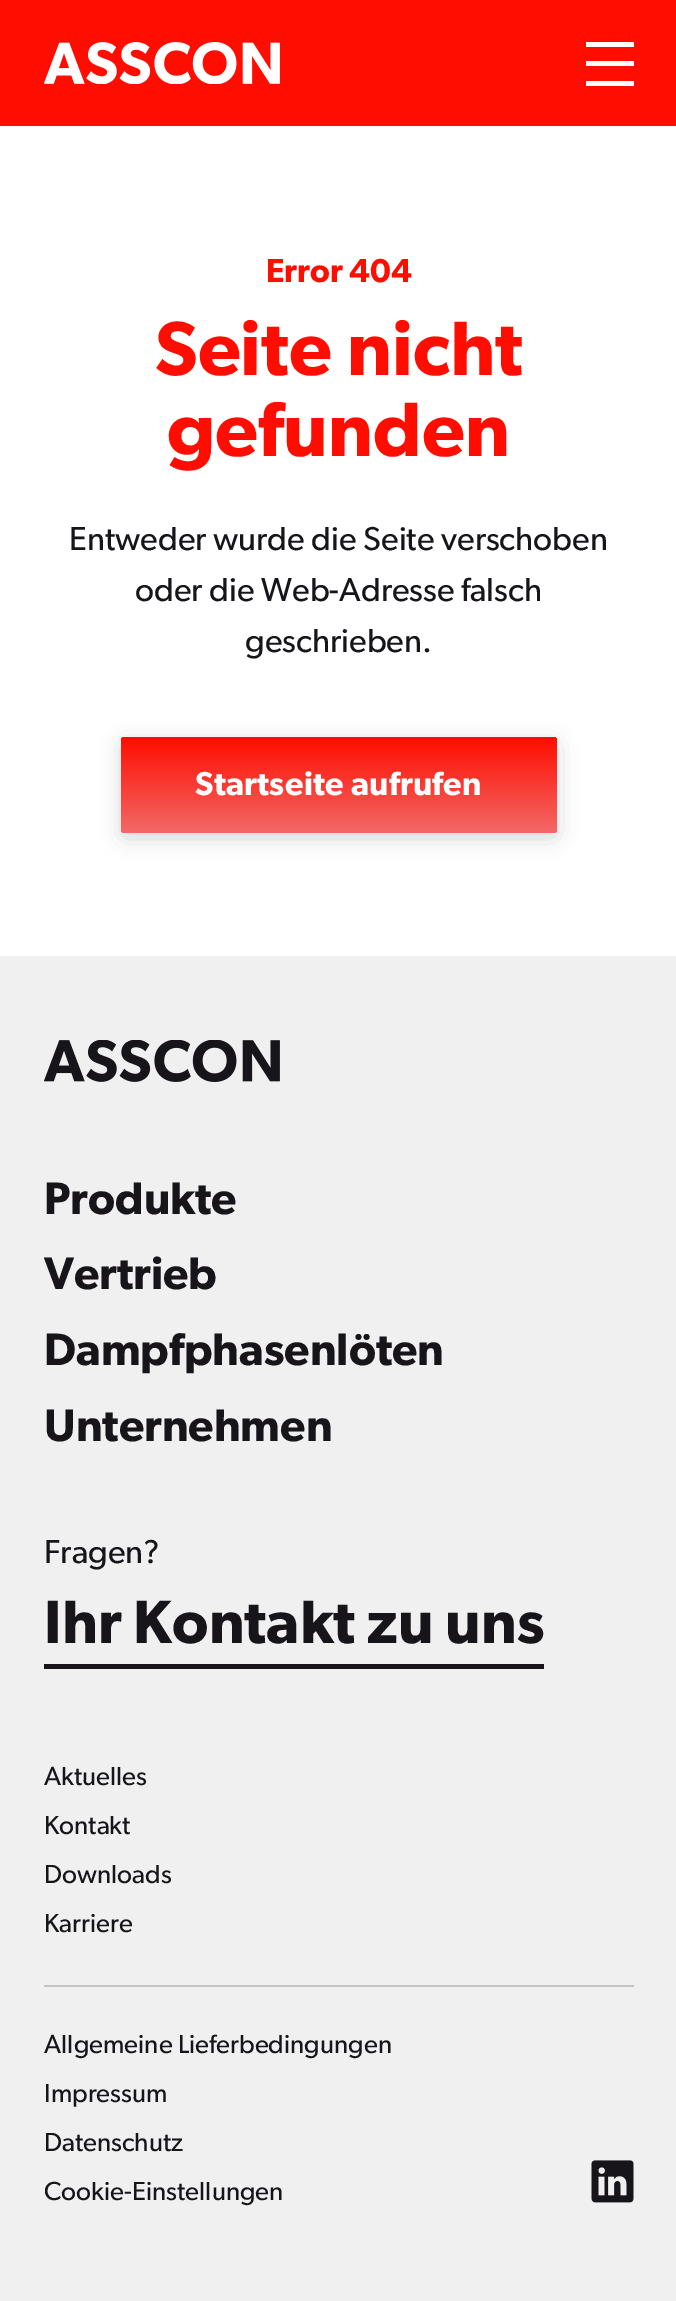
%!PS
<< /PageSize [676 2301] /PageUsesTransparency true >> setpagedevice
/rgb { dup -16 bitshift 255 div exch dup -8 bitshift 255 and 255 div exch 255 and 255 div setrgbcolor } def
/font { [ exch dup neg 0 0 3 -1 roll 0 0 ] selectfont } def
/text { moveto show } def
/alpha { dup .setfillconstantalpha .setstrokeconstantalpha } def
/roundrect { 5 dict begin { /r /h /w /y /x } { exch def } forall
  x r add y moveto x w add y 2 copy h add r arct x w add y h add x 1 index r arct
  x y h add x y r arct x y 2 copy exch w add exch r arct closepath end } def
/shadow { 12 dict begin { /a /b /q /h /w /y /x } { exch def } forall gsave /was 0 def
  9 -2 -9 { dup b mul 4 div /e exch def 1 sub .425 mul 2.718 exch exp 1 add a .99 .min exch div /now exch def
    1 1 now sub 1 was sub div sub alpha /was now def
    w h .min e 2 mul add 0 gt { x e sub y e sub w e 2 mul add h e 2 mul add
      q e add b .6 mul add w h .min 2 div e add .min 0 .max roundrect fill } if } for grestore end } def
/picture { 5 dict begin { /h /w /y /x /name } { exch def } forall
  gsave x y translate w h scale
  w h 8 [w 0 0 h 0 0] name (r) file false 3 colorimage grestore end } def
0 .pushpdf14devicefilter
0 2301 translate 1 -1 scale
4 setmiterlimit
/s1 { /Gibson-SemiBold 33.25 font 16#FF0D00 rgb } def
/s2 { /Gibson-SemiBold 77 font 16#FF0D00 rgb } def
/s3 { /Gibson-Regular 33.25 font 16#17141A rgb } def
/s4 { /Gibson-SemiBold 45.5 font 16#17141A rgb } def
/s5 { /Gibson-SemiBold 61.25 font 16#17141A rgb } def
/s6 { /Gibson-Regular 26.25 font 16#17141A rgb } def
16#FFFFFF rgb
0 0 676 2301 rectfill
16#FF0D00 rgb
0 0 676 126 rectfill
(pic1.raw) 44 42 236 42 picture
16#FFFFFF rgb
586 42 48 5 rectfill
586 61 48 5 rectfill
586 81 48 5 rectfill
s1
(Error 404) 266 282 text
s2
(Seite nicht) 155 375 text
(gefunden) 167 456 text
s3
(Entweder wurde die Seite verschoben) 69 550 text
(oder die Web-Adresse falsch) 135 601 text
(geschrieben.) 245 652 text
16#000000 rgb
121 742 436 96 4 10.5 0.16 shadow
gsave 121 737 436 96 4 roundrect clip newpath
<< /ShadingType 2 /ColorSpace /DeviceRGB /Coords [339 737 339 833] /Extend [true true] /Function << /FunctionType 2 /Domain [0 1] /C0 [1 0.051 0] /C1 [0.949 0.412 0.404] /N 1 >> >> shfill grestore
/Gibson-SemiBold 33.25 font
16#FFFFFF rgb
195 795 moveto 0.3 0 (Startseite aufrufen) ashow
16#F0F0F0 rgb
0 956 676 1345 rectfill
(pic2.raw) 44 1040 236 42 picture
s4
(Produkte) 44 1214 text
(Vertrieb) 44 1289 text
(Dampfphasenlöten) 44 1365 text
(Unternehmen) 44 1441 text
s3
(Fragen?) 44 1563 text
44 1664 500 5 rectfill
s5
(Ihr Kontakt zu uns) 44 1643 text
s6
(Aktuelles) 44 1785 text
(Kontakt) 44 1834 text
(Downloads) 44 1883 text
(Karriere) 44 1932 text
16#C5C4C5 rgb
44 1985 590 2 rectfill
s6
(Allgemeine Lieferbedingungen) 44 2053 text
(Impressum) 44 2102 text
(Datenschutz) 44 2151 text
(Cookie-Einstellungen) 44 2200 text
(pic3.raw) 591 2160 43 43 picture
.poppdf14devicefilter showpage
